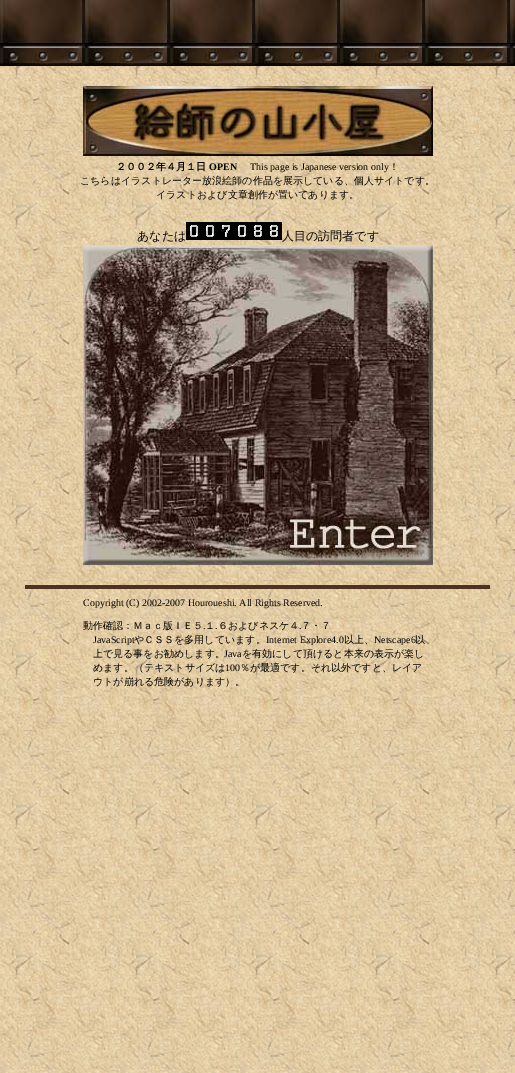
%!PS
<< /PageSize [515 1073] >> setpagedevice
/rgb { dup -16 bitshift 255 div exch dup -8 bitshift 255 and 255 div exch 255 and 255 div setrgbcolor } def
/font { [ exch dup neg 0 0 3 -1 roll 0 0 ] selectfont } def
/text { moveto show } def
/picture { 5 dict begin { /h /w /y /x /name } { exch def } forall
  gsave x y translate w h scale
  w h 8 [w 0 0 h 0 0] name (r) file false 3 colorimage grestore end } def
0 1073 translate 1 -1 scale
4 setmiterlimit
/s1 { /WenQuanYiZenHei-Bold 10 font 16#000000 rgb } def
/s2 { /LiberationSerif-Bold 10 font 16#000000 rgb } def
/s3 { /LiberationSerif-Regular 10 font 16#000000 rgb } def
/s4 { /WenQuanYiZenHei-Medium 10 font 16#000000 rgb } def
/s5 { /WenQuanYiZenHei-Medium 12 font 16#000000 rgb } def
16#FFFFFF rgb
0 0 515 1073 rectfill
(pic1.raw) 0 66 515 1007 picture
(pic2.raw) 0 0 515 66 picture
(pic3.raw) 83 86 350 70 picture
s1
(２００２年４月１日) 116 170 text
s2
(OPEN) 209 170 text
s3
(This page is Japanese version only) 250 170 text
s4
(！) 389 170 text
(こちらはイラストレーター放浪絵師の作品を展示している、個人サイトです。) 80 184 text
(イラストおよび文章創作が置いてあります。) 156 198 text
s5
(あなたは) 137 240 text
(pic4.raw) 186 222 96 18 picture
(人目の訪問者です) 282 240 text
(pic5.raw) 83 245 350 320 picture
16#4F3120 rgb
25 585 465 4 rectfill
s3
(Copyright \(C\) 2002-2007 Houroueshi. All Rights Reserved.) 83 606 text
s4
(動作確認：Ｍａｃ版ＩＥ５) 83 629 text
s3
(.) 203 629 text
s4
(１) 205 629 text
s3
(.) 215 629 text
s4
(６およびネスケ４) 218 629 text
s3
(.) 299 629 text
s4
(７・７) 301 629 text
s3
(JavaScript) 93 643 text
s4
(やＣＳＳを多用しています。) 134 643 text
s3
(Internet Explore4.0) 266 643 text
s4
(以上、) 344 643 text
s3
(Netscape6) 374 643 text
s4
(以) 415 643 text
(上で見る事をお勧めします。) 93 657 text
s3
(Java) 224 657 text
s4
(を有効にして頂けると本来の表示が楽し) 242 657 text
(めます。（テキストサイズは) 93 671 text
s3
(100) 225 671 text
s4
(％が最適です。それ以外ですと、レイア) 240 671 text
(ウトが崩れる危険があります）。) 93 685 text
showpage
